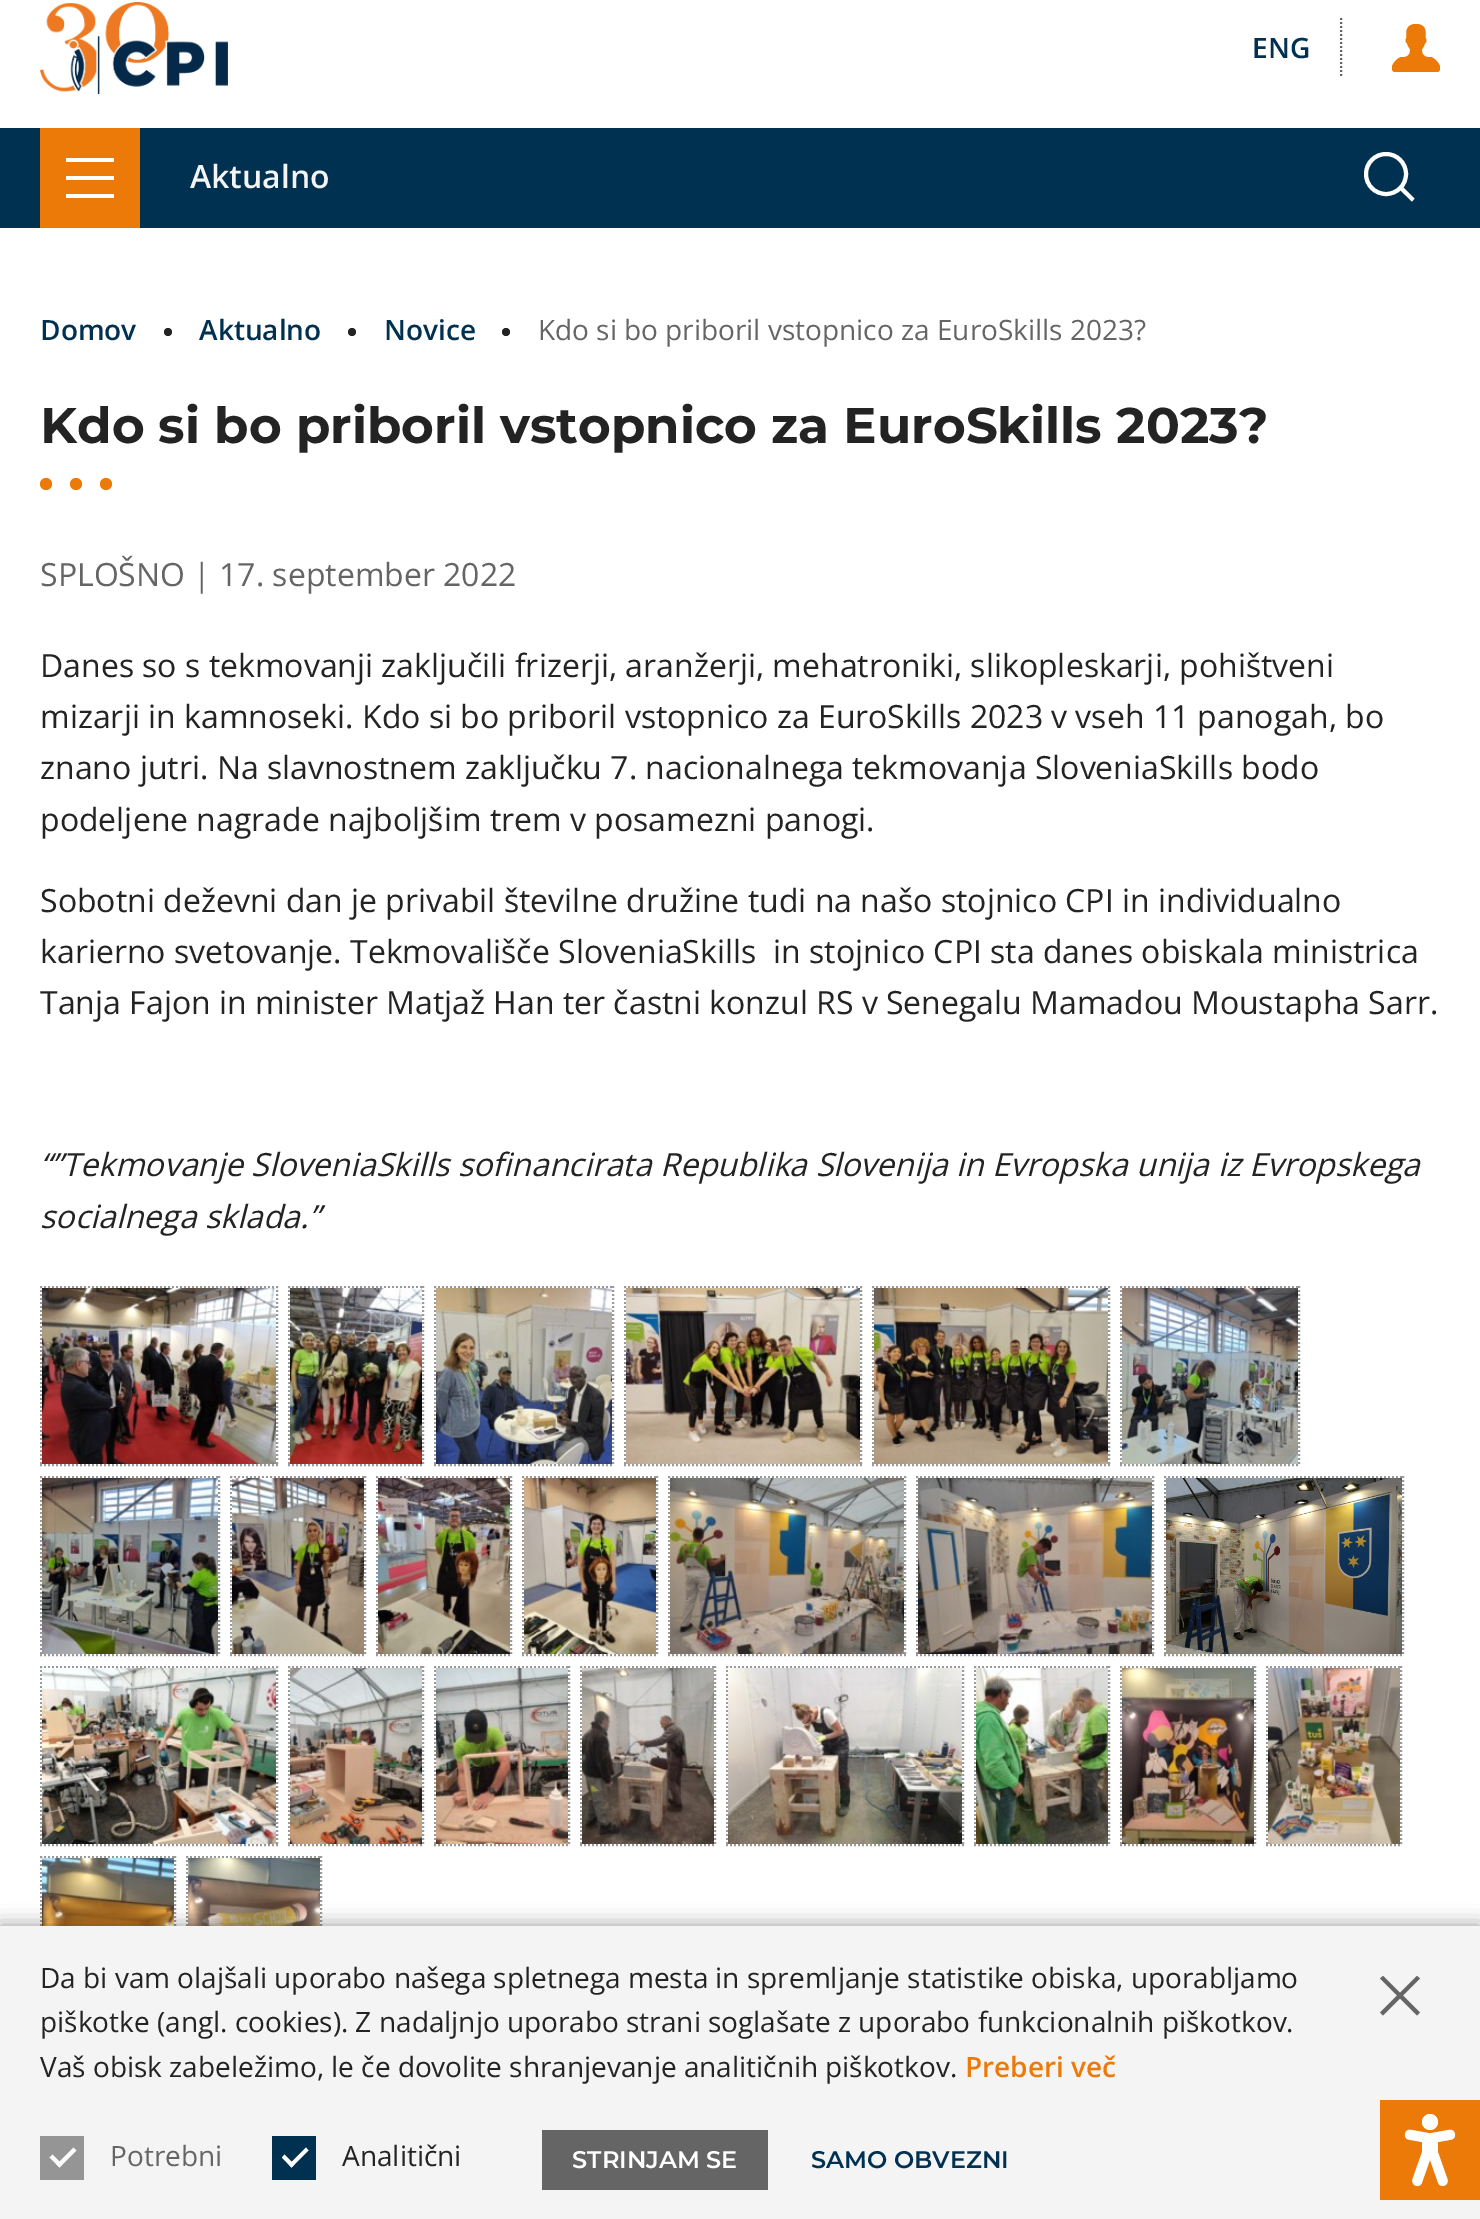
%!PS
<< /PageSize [1480 2219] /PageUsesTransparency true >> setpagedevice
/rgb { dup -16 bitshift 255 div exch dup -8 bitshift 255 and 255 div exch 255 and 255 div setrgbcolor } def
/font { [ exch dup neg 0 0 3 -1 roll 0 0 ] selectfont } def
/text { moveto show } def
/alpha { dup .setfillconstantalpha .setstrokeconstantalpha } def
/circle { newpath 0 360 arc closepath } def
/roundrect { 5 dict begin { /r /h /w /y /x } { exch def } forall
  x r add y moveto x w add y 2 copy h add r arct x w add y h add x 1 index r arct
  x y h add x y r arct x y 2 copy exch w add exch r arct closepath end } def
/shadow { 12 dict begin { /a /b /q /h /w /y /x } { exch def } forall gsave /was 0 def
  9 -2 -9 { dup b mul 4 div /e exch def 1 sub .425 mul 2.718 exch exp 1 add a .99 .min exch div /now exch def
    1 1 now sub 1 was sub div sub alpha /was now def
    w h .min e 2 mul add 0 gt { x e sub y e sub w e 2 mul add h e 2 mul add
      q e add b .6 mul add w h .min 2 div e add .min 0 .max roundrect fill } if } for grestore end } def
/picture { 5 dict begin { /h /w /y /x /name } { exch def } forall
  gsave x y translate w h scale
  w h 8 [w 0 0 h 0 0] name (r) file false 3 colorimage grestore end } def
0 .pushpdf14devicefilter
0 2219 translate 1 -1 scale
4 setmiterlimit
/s1 { /OpenSans-SemiBold 28 font 16#003150 rgb } def
/s2 { /OpenSans-SemiBold 32 font 16#F4F4F4 rgb } def
/s3 { /OpenSans-Regular 28 font 16#656565 rgb } def
/s4 { /Montserrat-Bold 50 font 16#232323 rgb } def
/s5 { /OpenSans-Regular 32 font 16#656565 rgb } def
/s6 { /OpenSans-Regular 32 font 16#232323 rgb } def
/s7 { /OpenSans-Italic 32 font 16#232323 rgb } def
/s8 { /OpenSans-Regular 28 font 16#232323 rgb } def
/s9 { /OpenSans-SemiBold 28 font 16#EC7A08 rgb } def
/s10 { /Montserrat-SemiBold 24 font 16#FFFFFF rgb } def
/s11 { /Montserrat-SemiBold 24 font 16#003150 rgb } def
16#FFFFFF rgb
0 0 1480 2219 rectfill
(pic1.raw) 40 2 188 92 picture
s1
(ENG) 1252 58 text
16#656565 rgb
2 setlinewidth
[2 2] 0 setdash
1341 18 moveto 1341 78 lineto stroke
(pic2.raw) 1392 24 48 48 picture
16#003150 rgb
0 128 1480 100 rectfill
16#EC7A08 rgb
40 128 100 100 rectfill
16#FFFFFF rgb
66 176 48 4 rectfill
66 158 48 4 rectfill
66 194 48 4 rectfill
s2
(Aktualno) 190 188 text
16#FFFFFF rgb
4 setlinewidth
[] 0 setdash
1386 174 20 circle stroke
1402 186 moveto 1414.5 198.5 lineto 1412 201.5 lineto 1399 189 lineto closepath fill
s1
(Domov) 40 340 text
16#232323 rgb
168 332 4 circle fill
s1
(Aktualno) 199 340 text
16#232323 rgb
352 332 4 circle fill
s1
(Novice) 384 340 text
16#232323 rgb
506 332 4 circle fill
s3
(Kdo si bo priboril vstopnico za EuroSkills 2023?) 538 340 text
s4
(Kdo si bo priboril vstopnico za EuroSkills 2023?) 40 443 text
16#EC7A08 rgb
76 484 6 circle fill
46 484 6 circle fill
106 484 6 circle fill
s5
(SPLOŠNO | 17. september 2022) 40 586 text
s6
(Danes so s tekmovanji zaključili frizerji, aranžerji, mehatroniki, slikopleskarji, pohištveni) 40 677 text
(mizarji in kamnoseki. Kdo si bo priboril vstopnico za EuroSkills 2023 v vseh 11 panogah, bo) 40 728 text
(znano jutri. Na slavnostnem zaključku 7. nacionalnega tekmovanja SloveniaSkills bodo) 40 779 text
(podeljene nagrade najboljšim trem v posamezni panogi.) 40 831 text
(Sobotni deževni dan je privabil številne družine tudi na našo stojnico CPI in individualno) 40 912 text
(karierno svetovanje. Tekmovališče SloveniaSkills  in stojnico CPI sta danes obiskala ministrica) 40 963 text
(Tanja Fajon in minister Matjaž Han ter častni konzul RS v Senegalu Mamadou Moustapha Sarr.) 40 1014 text
s7
(“”Tekmovanje SloveniaSkills sofinancirata Republika Slovenija in Evropska unija iz Evropskega) 40 1176 text
(socialnega sklada.”) 40 1228 text
16#9A9A9A rgb
2 setlinewidth
[2 2] 0 setdash
40 1287 moveto 278 1287 lineto stroke
277 1286 moveto 277 1466 lineto stroke
40 1465 moveto 278 1465 lineto stroke
41 1286 moveto 41 1466 lineto stroke
(pic3.raw) 42 1288 234 176 picture
288 1287 moveto 424 1287 lineto stroke
423 1286 moveto 423 1466 lineto stroke
288 1465 moveto 424 1465 lineto stroke
289 1286 moveto 289 1466 lineto stroke
(pic4.raw) 290 1288 132 176 picture
434 1287 moveto 614 1287 lineto stroke
613 1286 moveto 613 1466 lineto stroke
434 1465 moveto 614 1465 lineto stroke
435 1286 moveto 435 1466 lineto stroke
(pic5.raw) 436 1288 176 176 picture
624 1287 moveto 862 1287 lineto stroke
861 1286 moveto 861 1466 lineto stroke
624 1465 moveto 862 1465 lineto stroke
625 1286 moveto 625 1466 lineto stroke
(pic6.raw) 626 1288 234 176 picture
872 1287 moveto 1110 1287 lineto stroke
1109 1286 moveto 1109 1466 lineto stroke
872 1465 moveto 1110 1465 lineto stroke
873 1286 moveto 873 1466 lineto stroke
(pic7.raw) 874 1288 234 176 picture
1120 1287 moveto 1300 1287 lineto stroke
1299 1286 moveto 1299 1466 lineto stroke
1120 1465 moveto 1300 1465 lineto stroke
1121 1286 moveto 1121 1466 lineto stroke
(pic8.raw) 1122 1288 176 176 picture
40 1477 moveto 220 1477 lineto stroke
219 1476 moveto 219 1656 lineto stroke
40 1655 moveto 220 1655 lineto stroke
41 1476 moveto 41 1656 lineto stroke
(pic9.raw) 42 1478 176 176 picture
230 1477 moveto 366 1477 lineto stroke
365 1476 moveto 365 1656 lineto stroke
230 1655 moveto 366 1655 lineto stroke
231 1476 moveto 231 1656 lineto stroke
(pic10.raw) 232 1478 132 176 picture
376 1477 moveto 512 1477 lineto stroke
511 1476 moveto 511 1656 lineto stroke
376 1655 moveto 512 1655 lineto stroke
377 1476 moveto 377 1656 lineto stroke
(pic11.raw) 378 1478 132 176 picture
522 1477 moveto 658 1477 lineto stroke
657 1476 moveto 657 1656 lineto stroke
522 1655 moveto 658 1655 lineto stroke
523 1476 moveto 523 1656 lineto stroke
(pic12.raw) 524 1478 132 176 picture
668 1477 moveto 906 1477 lineto stroke
905 1476 moveto 905 1656 lineto stroke
668 1655 moveto 906 1655 lineto stroke
669 1476 moveto 669 1656 lineto stroke
(pic13.raw) 670 1478 234 176 picture
916 1477 moveto 1154 1477 lineto stroke
1153 1476 moveto 1153 1656 lineto stroke
916 1655 moveto 1154 1655 lineto stroke
917 1476 moveto 917 1656 lineto stroke
(pic14.raw) 918 1478 234 176 picture
1164 1477 moveto 1404 1477 lineto stroke
1403 1476 moveto 1403 1656 lineto stroke
1164 1655 moveto 1404 1655 lineto stroke
1165 1476 moveto 1165 1656 lineto stroke
(pic15.raw) 1166 1478 236 176 picture
40 1667 moveto 278 1667 lineto stroke
277 1666 moveto 277 1846 lineto stroke
40 1845 moveto 278 1845 lineto stroke
41 1666 moveto 41 1846 lineto stroke
(pic16.raw) 42 1668 234 176 picture
288 1667 moveto 424 1667 lineto stroke
423 1666 moveto 423 1846 lineto stroke
288 1845 moveto 424 1845 lineto stroke
289 1666 moveto 289 1846 lineto stroke
(pic17.raw) 290 1668 132 176 picture
434 1667 moveto 570 1667 lineto stroke
569 1666 moveto 569 1846 lineto stroke
434 1845 moveto 570 1845 lineto stroke
435 1666 moveto 435 1846 lineto stroke
(pic18.raw) 436 1668 132 176 picture
580 1667 moveto 716 1667 lineto stroke
715 1666 moveto 715 1846 lineto stroke
580 1845 moveto 716 1845 lineto stroke
581 1666 moveto 581 1846 lineto stroke
(pic19.raw) 582 1668 132 176 picture
726 1667 moveto 964 1667 lineto stroke
963 1666 moveto 963 1846 lineto stroke
726 1845 moveto 964 1845 lineto stroke
727 1666 moveto 727 1846 lineto stroke
(pic20.raw) 728 1668 234 176 picture
974 1667 moveto 1110 1667 lineto stroke
1109 1666 moveto 1109 1846 lineto stroke
974 1845 moveto 1110 1845 lineto stroke
975 1666 moveto 975 1846 lineto stroke
(pic21.raw) 976 1668 132 176 picture
1120 1667 moveto 1256 1667 lineto stroke
1255 1666 moveto 1255 1846 lineto stroke
1120 1845 moveto 1256 1845 lineto stroke
1121 1666 moveto 1121 1846 lineto stroke
(pic22.raw) 1122 1668 132 176 picture
1266 1667 moveto 1402 1667 lineto stroke
1401 1666 moveto 1401 1846 lineto stroke
1266 1845 moveto 1402 1845 lineto stroke
1267 1666 moveto 1267 1846 lineto stroke
(pic23.raw) 1268 1668 132 176 picture
40 1857 moveto 176 1857 lineto stroke
175 1856 moveto 175 2036 lineto stroke
41 1856 moveto 41 2036 lineto stroke
(pic24.raw) 42 1858 132 68 picture
186 1857 moveto 322 1857 lineto stroke
321 1856 moveto 321 2036 lineto stroke
187 1856 moveto 187 2036 lineto stroke
(pic25.raw) 188 1858 132 68 picture
16#323232 rgb
0 1926 1480 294 0 10 0.5 shadow
16#F4F4F4 rgb
0 1926 1480 293 rectfill
s8
(Da bi vam olajšali uporabo našega spletnega mesta in spremljanje statistike obiska, uporabljamo) 40 1988 text
(piškotke \(angl. cookies\). Z nadaljnjo uporabo strani soglašate z uporabo funkcionalnih piškotkov.) 40 2032 text
(Vaš obisk zabeležimo, le če dovolite shranjevanje analitičnih piškotkov.) 40 2077 text
s9
(Preberi več) 965 2077 text
16#656565 rgb
1380 2012.5 moveto 1417 1976 lineto 1420 1978.5 lineto 1383 2015.5 lineto closepath fill
1383 1976 moveto 1420 2012.5 lineto 1417 2015.5 lineto 1380 1978.5 lineto closepath fill
16#959595 rgb
40 2136 44 44 rectfill
s3
(Potrebni) 110 2166 text
16#FBFBFB rgb
73.5 2147.5 moveto 76.5 2150.5 lineto 59.5 2167.5 lineto 56.5 2164.5 lineto closepath fill
52.5 2154.5 moveto 62.5 2164.5 lineto 59.5 2167.5 lineto 49.5 2157.5 lineto closepath fill
16#003150 rgb
272 2136 44 44 rectfill
s8
(Analitični) 342 2166 text
16#FFFFFF rgb
306 2147.5 moveto 308.5 2150.5 lineto 291.5 2167.5 lineto 289 2164.5 lineto closepath fill
284.5 2154.5 moveto 294.5 2164.5 lineto 291.5 2167.5 lineto 282 2157.5 lineto closepath fill
16#656565 rgb
542 2130 226 60 rectfill
s10
(STRINJAM SE) 572 2168 text
s11
(SAMO OBVEZNI) 811 2168 text
16#EC7A08 rgb
1380 2100 100 100 rectfill
(pic26.raw) 1404 2114 52 72 picture
.poppdf14devicefilter showpage
